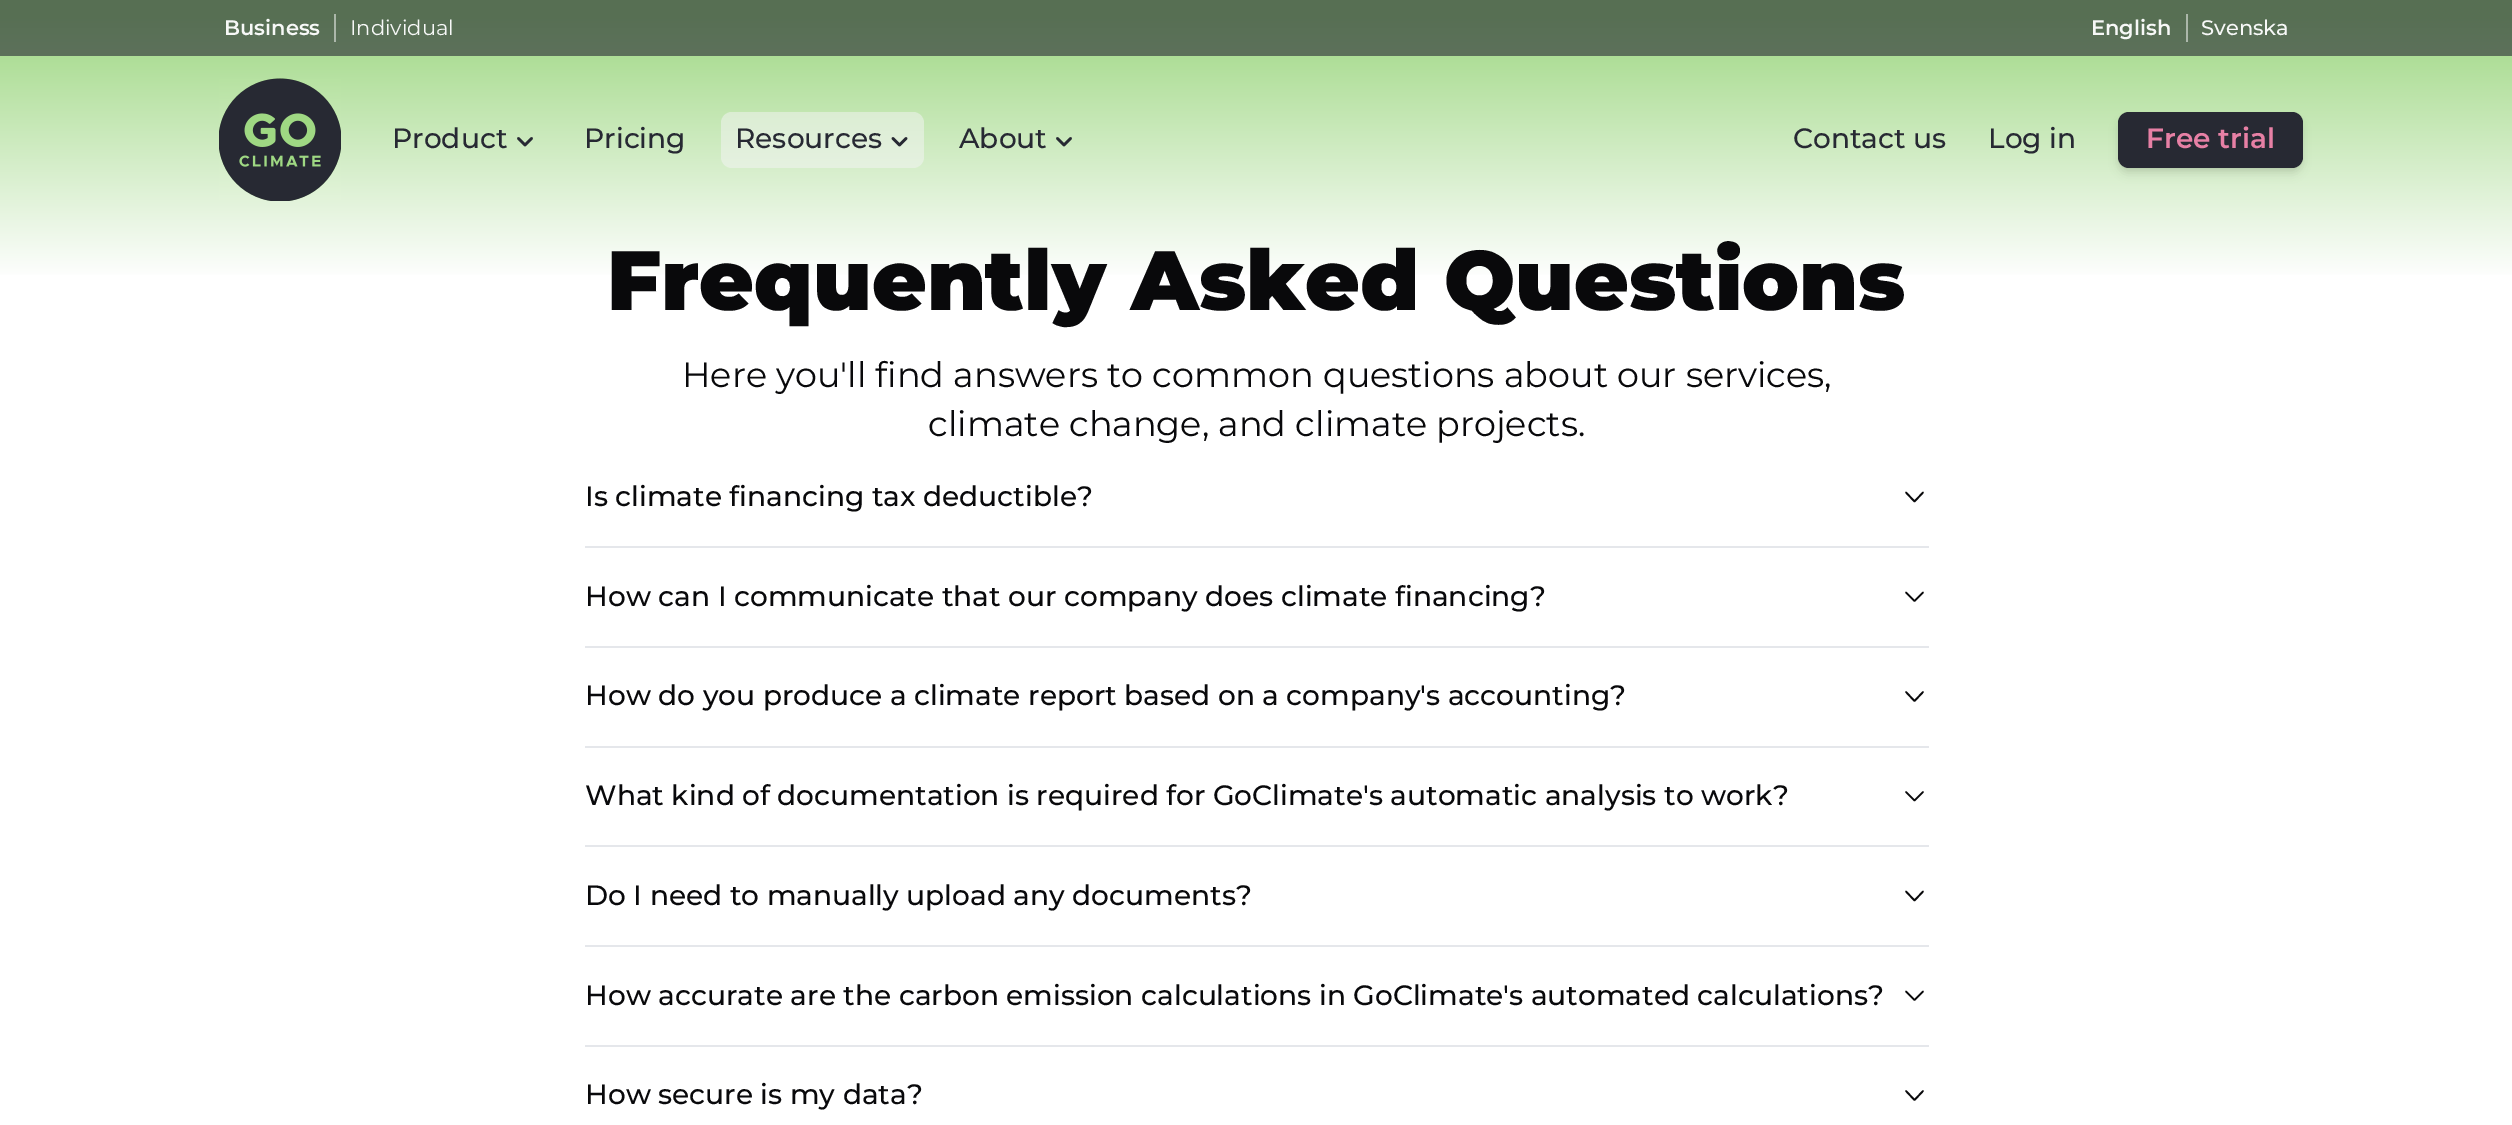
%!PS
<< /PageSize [2512 1125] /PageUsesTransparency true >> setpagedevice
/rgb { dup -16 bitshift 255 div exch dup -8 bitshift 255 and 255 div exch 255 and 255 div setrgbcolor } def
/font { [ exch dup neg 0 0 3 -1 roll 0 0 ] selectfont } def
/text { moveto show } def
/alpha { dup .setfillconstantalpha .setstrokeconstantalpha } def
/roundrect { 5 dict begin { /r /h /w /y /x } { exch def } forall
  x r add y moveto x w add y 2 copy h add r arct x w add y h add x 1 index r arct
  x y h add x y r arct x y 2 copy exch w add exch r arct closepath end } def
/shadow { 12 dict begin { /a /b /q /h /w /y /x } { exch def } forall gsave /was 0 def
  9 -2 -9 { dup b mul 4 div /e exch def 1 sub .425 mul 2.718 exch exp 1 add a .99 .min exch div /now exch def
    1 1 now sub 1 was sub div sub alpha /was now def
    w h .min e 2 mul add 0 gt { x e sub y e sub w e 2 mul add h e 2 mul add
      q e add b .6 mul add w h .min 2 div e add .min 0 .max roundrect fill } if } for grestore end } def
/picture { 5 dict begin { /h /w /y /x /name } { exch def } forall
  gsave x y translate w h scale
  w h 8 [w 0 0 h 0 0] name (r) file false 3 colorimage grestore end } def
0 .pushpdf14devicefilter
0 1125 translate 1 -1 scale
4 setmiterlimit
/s1 { /Montserrat-SemiBold 21 font 16#F7F8F7 rgb } def
/s2 { /Montserrat-Regular 21 font 16#F7F8F7 rgb } def
/s3 { /Montserrat-Medium 21 font 16#F7F8F7 rgb } def
/s4 { /Montserrat-Medium 28 font 16#272933 rgb } def
/s5 { /Montserrat-SemiBold 28 font 16#E780A5 rgb } def
/s6 { /Montserrat-Black 84 font 16#09090B rgb } def
/s7 { /Montserrat-Regular 35 font 16#09090B rgb } def
/s8 { /Montserrat-Medium 28 font 16#09090B rgb } def
16#FFFFFF rgb
0 0 2512 1125 rectfill
gsave 0 0 moveto 2512 0 lineto 2512 56 lineto 0 56 lineto closepath clip newpath
<< /ShadingType 2 /ColorSpace /DeviceRGB /Coords [1257 0 1257 280] /Extend [true true] /Function << /FunctionType 3 /Domain [0 1] /Functions [<< /FunctionType 2 /Domain [0 1] /C0 [0.341 0.435 0.325] /C1 [0.341 0.435 0.325] /N 1 >> << /FunctionType 2 /Domain [0 1] /C0 [0.341 0.435 0.325] /C1 [0.49 0.498 0.522] /N 1 >>] /Bounds [0.05] /Encode [0 1 0 1] >> >> shfill grestore
s1
(Business) 224 35 text
s2
(Individual) 350 35 text
s1
(English) 2091 35 text
s3
(Svenska) 2201 35 text
gsave 0 56 moveto 2512 56 lineto 2512 275 lineto 0 275 lineto closepath clip newpath
<< /ShadingType 2 /ColorSpace /DeviceRGB /Coords [1257 0 1257 280] /Extend [true true] /Function << /FunctionType 3 /Domain [0 1] /Functions [<< /FunctionType 2 /Domain [0 1] /C0 [0.624 0.847 0.514] /C1 [0.624 0.847 0.514] /N 1 >> << /FunctionType 2 /Domain [0 1] /C0 [0.624 0.847 0.514] /C1 [1 1 1] /N 1 >>] /Bounds [0.05] /Encode [0 1 0 1] >> >> shfill grestore
(pic1.raw) 219 78 122 123 picture
s4
(Product) 392 148 text
2.6 setlinewidth
1 setlinecap
1 setlinejoin
531.5 138.5 moveto 525 145 lineto 518.5 138.5 lineto stroke
(Pricing) 584 148 text
0.5 alpha
16#F4F4F5 rgb
721 112 203 56 11 roundrect fill
1 alpha
s4
(Resources) 735 148 text
906 138.5 moveto 899.5 145 lineto 893 138.5 lineto stroke
(About) 959 148 text
1070.5 138.5 moveto 1064 145 lineto 1057.5 138.5 lineto stroke
(Contact us) 1793 148 text
(Log in) 1988 148 text
16#000000 rgb
2121 119 179 49 7 3.5 0.1 shadow
2119 121 182 52 9 5 0.1 shadow
16#272933 rgb
2118 112 185 56 11 roundrect fill
s5
(Free trial) 2146 148 text
gsave 2186 14 moveto 2188 14 lineto 2188 42 lineto 2186 42 lineto closepath clip newpath
<< /ShadingType 2 /ColorSpace /DeviceRGB /Coords [1257 0 1257 280] /Extend [true true] /Function << /FunctionType 3 /Domain [0 1] /Functions [<< /FunctionType 2 /Domain [0 1] /C0 [0.671 0.718 0.663] /C1 [0.671 0.718 0.663] /N 1 >> << /FunctionType 2 /Domain [0 1] /C0 [0.671 0.718 0.663] /C1 [0.745 0.749 0.761] /N 1 >>] /Bounds [0.05] /Encode [0 1 0 1] >> >> shfill grestore
gsave 334 14 moveto 336 14 lineto 336 42 lineto 334 42 lineto closepath clip newpath
<< /ShadingType 2 /ColorSpace /DeviceRGB /Coords [1257 0 1257 280] /Extend [true true] /Function << /FunctionType 3 /Domain [0 1] /Functions [<< /FunctionType 2 /Domain [0 1] /C0 [0.671 0.718 0.663] /C1 [0.671 0.718 0.663] /N 1 >> << /FunctionType 2 /Domain [0 1] /C0 [0.671 0.718 0.663] /C1 [0.745 0.749 0.761] /N 1 >>] /Bounds [0.05] /Encode [0 1 0 1] >> >> shfill grestore
s6
(Frequently Asked Questions) 607 310 text
s7
(Here you'll find answers to common questions about our services,) 682 387 text
(climate change, and climate projects.) 928 436 text
16#E5E7EB rgb
585 546 1344 2 rectfill
s8
(Is climate financing tax deductible?) 585 506 text
1.7 setlinewidth
1923 492.5 moveto 1914.5 501.5 lineto 1906 492.5 lineto stroke
16#E5E7EB rgb
585 646 1344 2 rectfill
s8
(How can I communicate that our company does climate financing?) 585 606 text
1923 592.5 moveto 1914.5 601 lineto 1906 592.5 lineto stroke
16#E5E7EB rgb
585 746 1344 2 rectfill
s8
(How do you produce a climate report based on a company's accounting?) 585 705 text
1923 692 moveto 1914.5 701 lineto 1906 692 lineto stroke
16#E5E7EB rgb
585 845 1344 2 rectfill
s8
(What kind of documentation is required for GoClimate's automatic analysis to work?) 585 805 text
1923 792 moveto 1914.5 800.5 lineto 1906 792 lineto stroke
16#E5E7EB rgb
585 945 1344 2 rectfill
s8
(Do I need to manually upload any documents?) 585 905 text
1923 891.5 moveto 1914.5 900.5 lineto 1906 891.5 lineto stroke
16#E5E7EB rgb
585 1045 1344 2 rectfill
s8
(How accurate are the carbon emission calculations in GoClimate's automated calculations?) 585 1005 text
1923 991.5 moveto 1914.5 1000 lineto 1906 991.5 lineto stroke
(How secure is my data?) 585 1104 text
1923 1091 moveto 1914.5 1100 lineto 1906 1091 lineto stroke
.poppdf14devicefilter showpage
